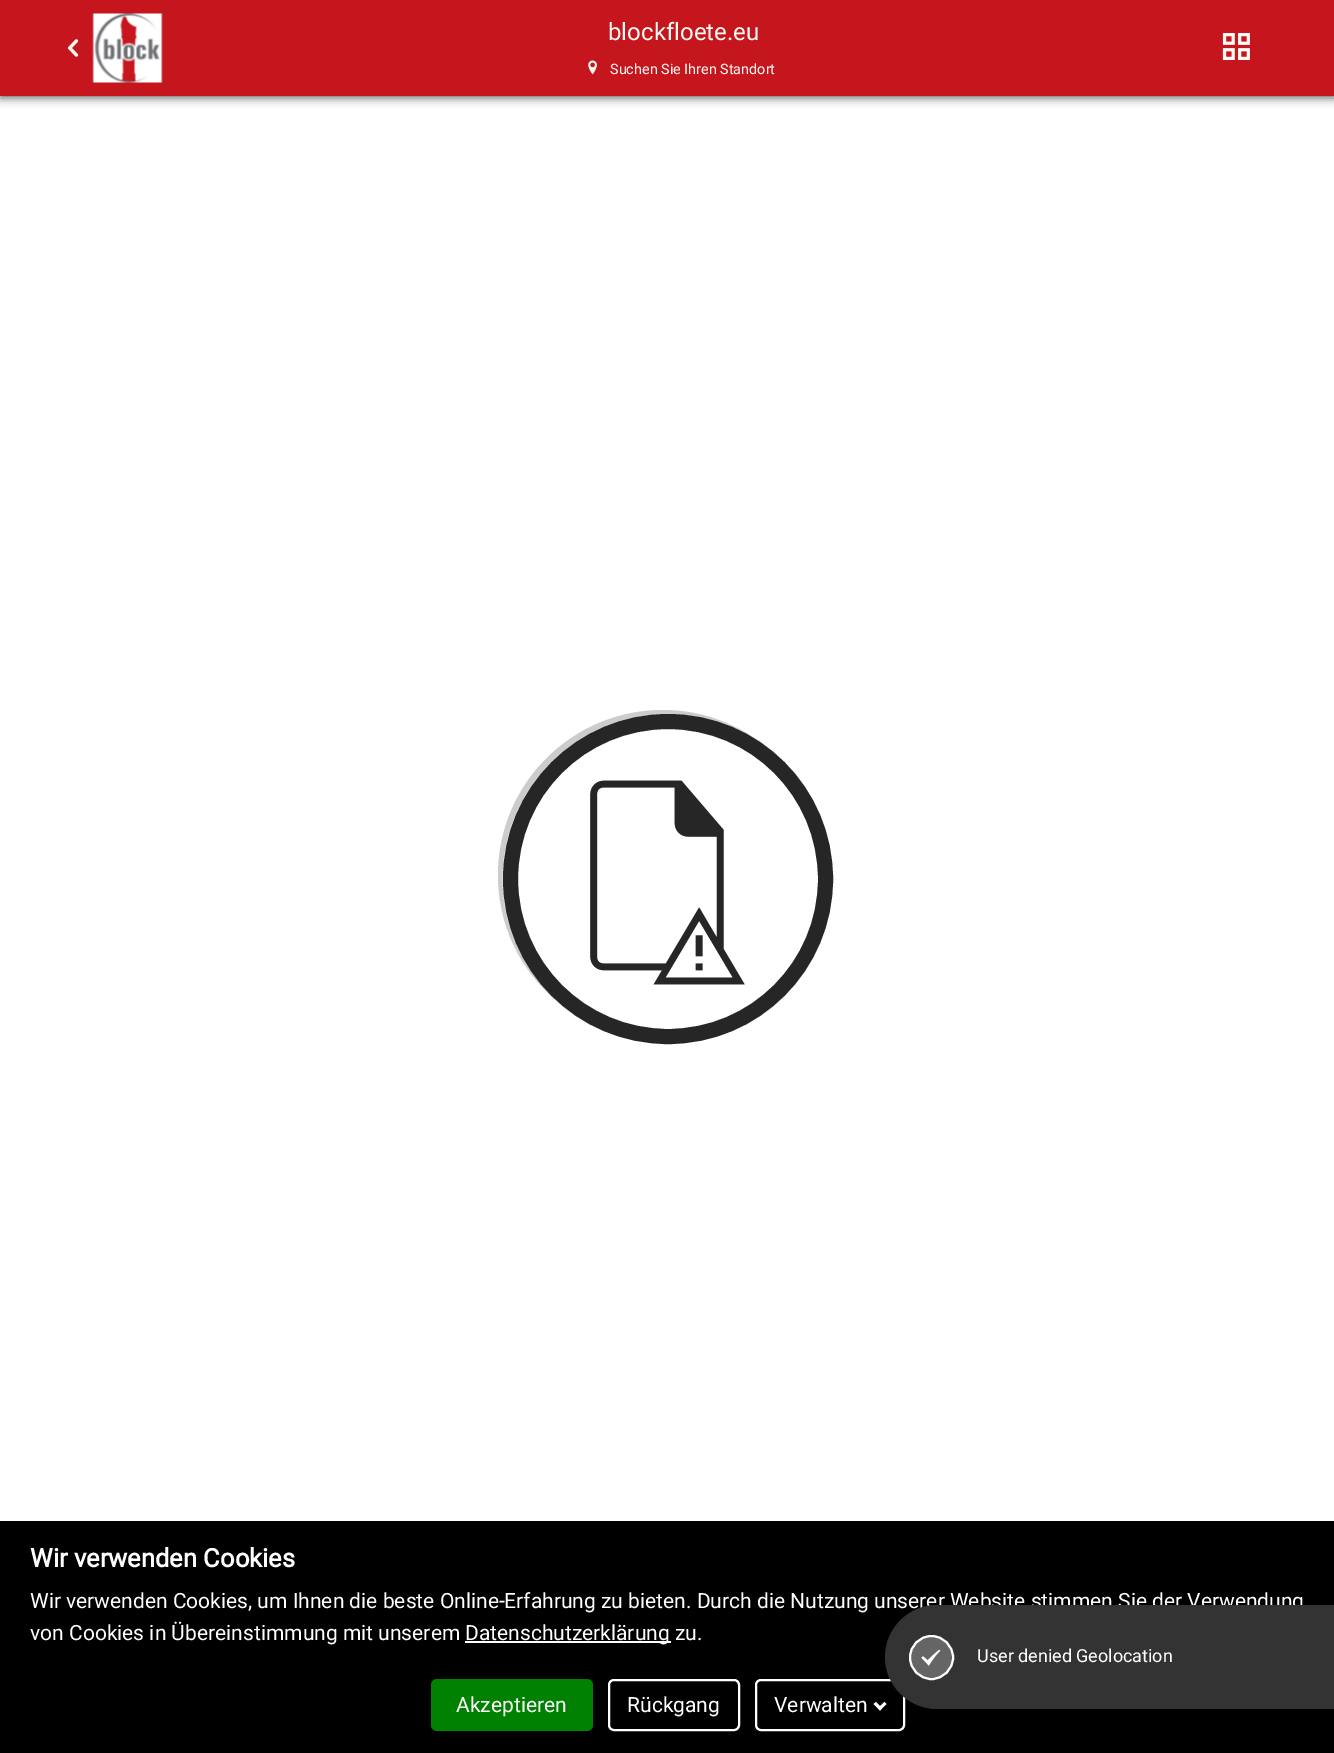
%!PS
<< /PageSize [1334 1753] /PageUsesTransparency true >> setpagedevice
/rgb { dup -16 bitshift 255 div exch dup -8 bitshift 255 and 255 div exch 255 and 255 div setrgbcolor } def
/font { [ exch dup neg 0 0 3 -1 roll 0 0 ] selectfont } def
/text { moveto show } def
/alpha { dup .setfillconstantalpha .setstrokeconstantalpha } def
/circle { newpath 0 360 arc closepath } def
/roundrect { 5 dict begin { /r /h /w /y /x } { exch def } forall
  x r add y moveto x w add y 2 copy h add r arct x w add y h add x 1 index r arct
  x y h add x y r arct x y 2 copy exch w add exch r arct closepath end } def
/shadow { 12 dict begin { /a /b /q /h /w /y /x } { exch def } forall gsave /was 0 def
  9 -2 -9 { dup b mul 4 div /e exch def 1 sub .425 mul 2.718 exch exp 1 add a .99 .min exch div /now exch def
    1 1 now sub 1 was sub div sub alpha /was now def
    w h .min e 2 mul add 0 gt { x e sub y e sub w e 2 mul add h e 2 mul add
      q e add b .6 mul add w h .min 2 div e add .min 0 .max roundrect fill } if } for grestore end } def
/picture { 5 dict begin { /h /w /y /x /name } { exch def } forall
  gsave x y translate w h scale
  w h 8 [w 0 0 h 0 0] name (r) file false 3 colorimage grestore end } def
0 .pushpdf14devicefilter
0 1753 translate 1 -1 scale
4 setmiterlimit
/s1 { /Roboto-Regular 24 font 16#FFFBF5 rgb } def
/s2 { /Roboto-Regular 14.4 font 16#FFFBF5 rgb } def
/s3 { /Roboto-Bold 25.5 font 16#FFFFFF rgb } def
/s4 { /Roboto-Regular 21 font 16#FFFFFF rgb } def
/s5 { /Roboto-Regular 18 font 16#FFFFFF rgb } def
16#FFFFFF rgb
0 0 1334 1753 rectfill
16#656565 rgb
0 2 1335 96 0 4.5 1 shadow
16#C5161D rgb
0 0 1334 96 rectfill
(pic1.raw) 68 39 11 18 picture
(pic2.raw) 92 13 71 70 picture
s1
(blockfloete.eu) 608 40 text
(pic3.raw) 588 60 9 15 picture
s2
(Suchen Sie Ihren Standort) 610 74 text
(pic4.raw) 1222 33 28 27 picture
16#CCCCCC rgb
663 710 moveto 572 710 498 784 498 875 curveto 498 925 520 970 556 1000 curveto 487 937 484 829 551 762 curveto 612 701 710 698 775 754 curveto 745 727 706 710 663 710 curveto closepath fill
16#262626 rgb
15 setlinewidth
668 879 157.5 circle stroke
(pic5.raw) 590 780 155 205 picture
16#000000 rgb
0 1521 1334 232 rectfill
s3
(Wir verwenden Cookies) 30 1567 text
s4
(Wir verwenden Cookies, um Ihnen die beste Online-Erfahrung zu bieten. Durch die Nutzung unserer Website stimmen Sie der Verwendung) 30 1608 text
(von Cookies in Übereinstimmung mit unserem) 30 1640 text
465 1641 206 2 rectfill
(Datenschutzerklärung zu.) 465 1640 text
16#008101 rgb
431 1679 162 52 6 roundrect fill
s4
(Akzeptieren) 456 1712 text
2 setlinewidth
609 1680 130 50 5 roundrect stroke
(Rückgang) 627 1712 text
756 1680 148 50 5 roundrect stroke
(Verwalten) 774 1712 text
884.5 1702 moveto 886.5 1704 lineto 880 1710.5 lineto 878 1708 lineto closepath fill
876 1702 moveto 882 1708 lineto 880 1710.5 lineto 873.5 1704 lineto closepath fill
16#333333 rgb
937 1605 moveto 1333 1605 lineto 1334 1605 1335 1606 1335 1607 curveto 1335 1707 lineto 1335 1708 1334 1709 1333 1709 curveto 937 1709 lineto 908.5 1709 885 1685.5 885 1657 curveto 885 1628.5 908.5 1605 937 1605 curveto closepath fill
16#656565 rgb
931.5 1657.5 21.5 circle gsave fill grestore
16#FFFFFF rgb
stroke
(pic6.raw) 921 1649 20 17 picture
s5
(User denied Geolocation) 977 1662 text
.poppdf14devicefilter showpage
